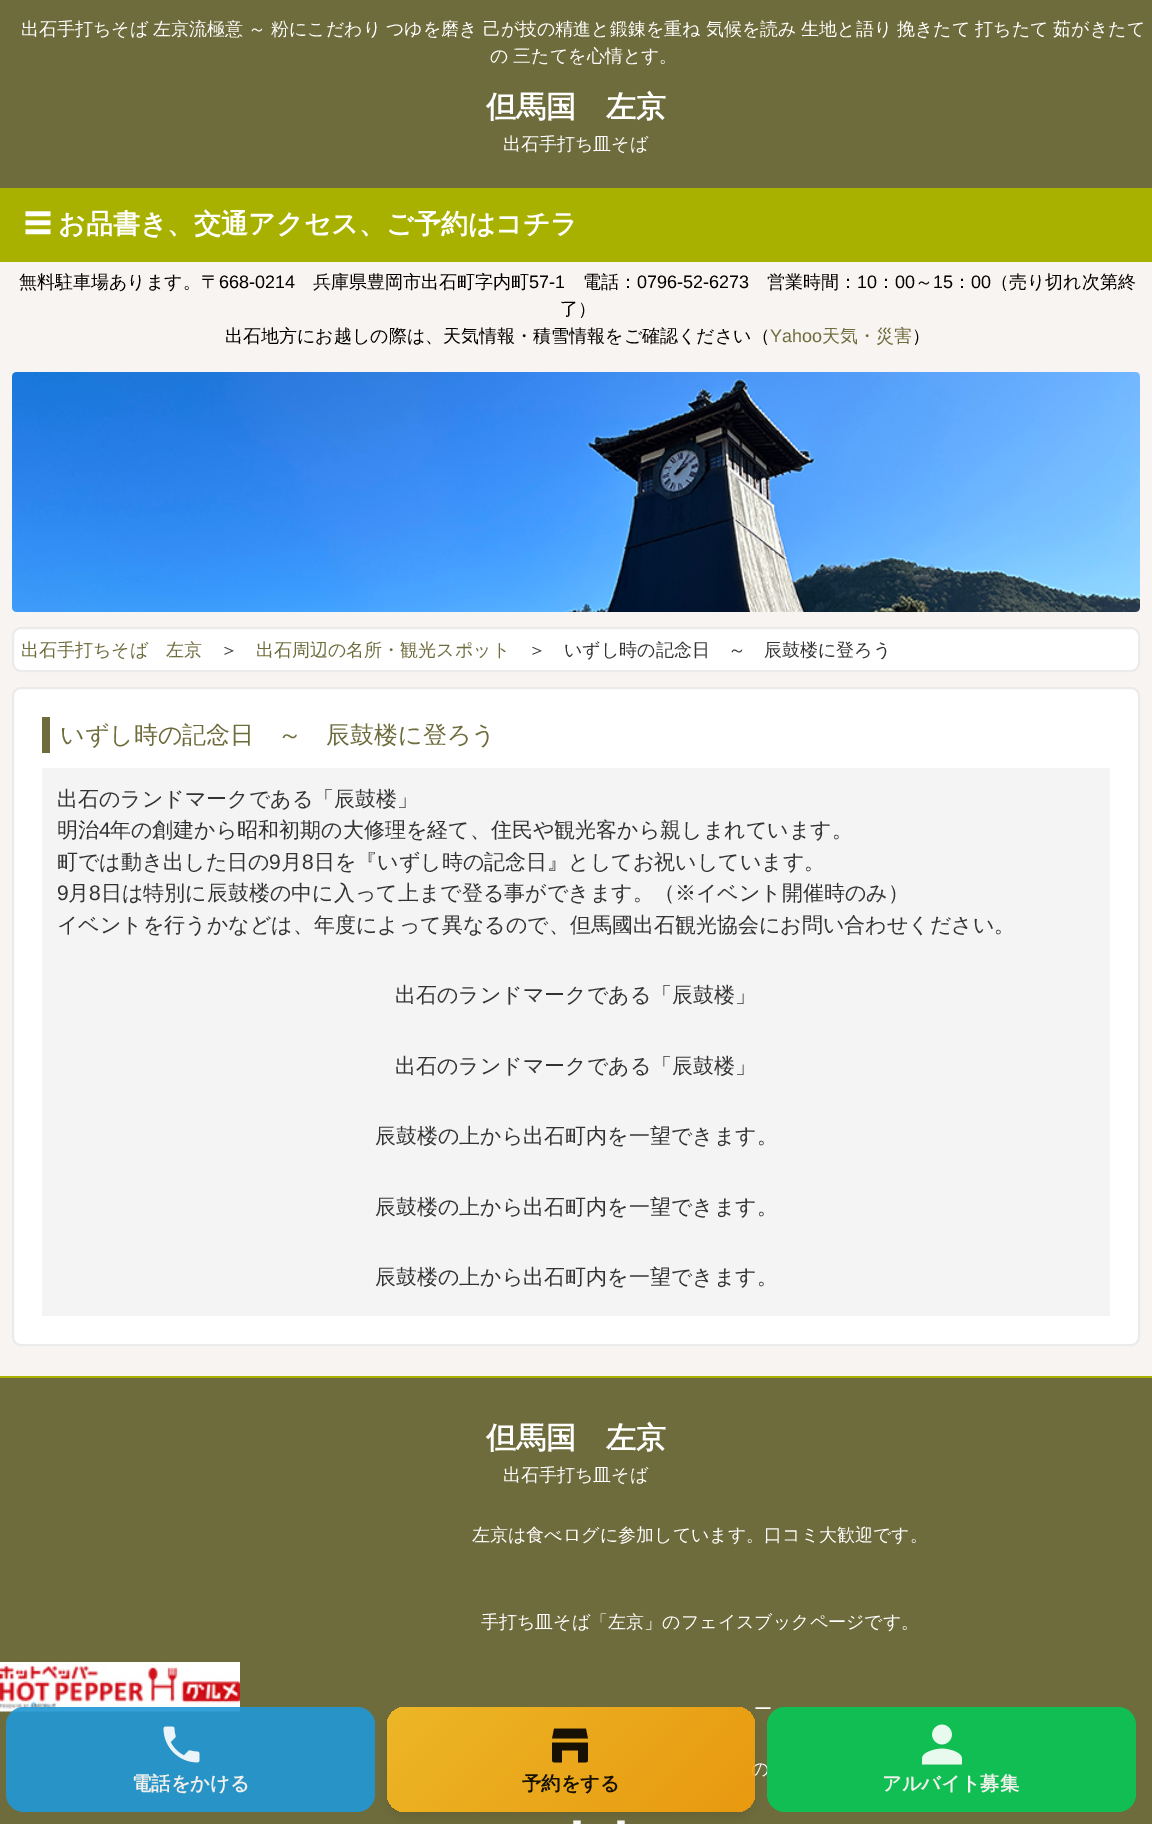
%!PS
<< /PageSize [1152 1824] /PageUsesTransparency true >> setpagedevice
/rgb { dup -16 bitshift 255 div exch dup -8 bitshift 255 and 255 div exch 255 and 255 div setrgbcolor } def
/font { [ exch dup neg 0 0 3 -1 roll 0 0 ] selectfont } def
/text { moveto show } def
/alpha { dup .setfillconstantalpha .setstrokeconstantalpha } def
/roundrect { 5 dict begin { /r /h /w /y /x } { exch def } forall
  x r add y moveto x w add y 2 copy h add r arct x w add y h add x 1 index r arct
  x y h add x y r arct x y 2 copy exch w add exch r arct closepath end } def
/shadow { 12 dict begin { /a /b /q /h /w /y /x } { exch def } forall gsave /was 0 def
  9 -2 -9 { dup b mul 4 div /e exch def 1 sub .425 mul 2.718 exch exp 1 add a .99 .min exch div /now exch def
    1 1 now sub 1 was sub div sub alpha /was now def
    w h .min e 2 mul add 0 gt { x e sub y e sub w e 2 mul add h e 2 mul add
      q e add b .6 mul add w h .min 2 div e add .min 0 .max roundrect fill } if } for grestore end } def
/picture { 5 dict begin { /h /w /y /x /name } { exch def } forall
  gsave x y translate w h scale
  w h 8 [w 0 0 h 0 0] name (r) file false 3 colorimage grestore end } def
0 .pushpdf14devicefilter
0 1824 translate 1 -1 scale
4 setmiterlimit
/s1 { /WenQuanYiZenHei-Bold 30 font 16#FFFFFF rgb } def
/s2 { /WenQuanYiZenHei-Medium 18 font 16#FFFFFF rgb } def
/s3 { /WenQuanYiZenHei-Medium 18 font 16#000000 rgb } def
/s4 { /LiberationSans-Regular 18 font 16#000000 rgb } def
/s5 { /LiberationSans-Regular 18 font 16#6E6B3C rgb } def
/s6 { /WenQuanYiZenHei-Medium 18 font 16#6E6B3C rgb } def
/s7 { /WenQuanYiZenHei-Medium 18 font 16#333333 rgb } def
/s8 { /WenQuanYiZenHei-Medium 24 font 16#6E6B3C rgb } def
/s9 { /WenQuanYiZenHei-Medium 21 font 16#333333 rgb } def
/s10 { /LiberationSans-Regular 21 font 16#333333 rgb } def
/s11 { /LiberationSans-Bold 30 font 16#FFFFFF rgb } def
/s12 { /WenQuanYiZenHei-Bold 19.25 font 16#F1F0EC rgb } def
/s13 { /WenQuanYiZenHei-Bold 19.25 font 16#171103 rgb } def
16#F8F4F1 rgb
0 0 1152 1824 rectfill
16#6E6B3C rgb
0 0 1152 188 rectfill
16#A8B100 rgb
0 188 1152 74 rectfill
/WenQuanYiZenHei-Medium 18 font
16#FFFFFF rgb
21 35 moveto -0.5 0 32 (出石手打ちそば 左京流極意 ～ 粉にこだわり つゆを磨き 己が技の精進と鍛錬を重ね 気候を読み 生地と語り 挽きたて 打ちたて 茹がきたて) widthshow
490 62 moveto -0.5 0 32 (の 三たてを心情とす。) widthshow
s1
(但馬国　左京) 486 117 text
s2
(出石手打ち皿そば) 503 150 text
/WenQuanYiZenHei-Bold 27 font
24 233 moveto -1 0 32 (☰ お品書き、交通アクセス、ご予約はコチラ) widthshow
s3
(無料駐車場あります。〒) 19 288 text
s4
(668-0214) 219 288 text
s3
(兵庫県豊岡市出石町字内町) 313 288 text
s4
(57-1) 529 288 text
s3
(電話：) 583 288 text
s4
(0796-52-6273) 637 288 text
s3
(営業時間：) 767 288 text
s4
(10) 857 288 text
s3
(：) 877 288 text
s4
(00) 895 288 text
s3
(～) 915 288 text
s4
(15) 933 288 text
s3
(：) 953 288 text
s4
(00) 971 288 text
s3
(（売り切れ次第終) 991 288 text
(了）) 560 315 text
(出石地方にお越しの際は、天気情報・積雪情報をご確認ください（) 225 342 text
s5
(Yahoo) 770 342 text
s6
(天気・災害) 822 342 text
s3
(）) 912 342 text
(pic1.raw) 12 372 1128 240 picture
16#FFFFFF rgb
13 628 1126 43 8 roundrect gsave fill grestore
16#EBEBEB rgb
2 setlinewidth
stroke
s6
(出石手打ちそば　左京) 21 656 text
s7
(＞) 220 656 text
s6
(出石周辺の名所・観光スポット) 256 656 text
s7
(＞　いずし時の記念日　～　辰鼓楼に登ろう) 528 656 text
16#FFFFFF rgb
13 688 1126 657 8 roundrect gsave fill grestore
16#EBEBEB rgb
stroke
16#6E6B3C rgb
42 717 8 36 rectfill
s8
(いずし時の記念日　～　辰鼓楼に登ろう) 60 743 text
16#F4F4F4 rgb
42 768 1068 548 rectfill
s9
(出石のランドマークである「辰鼓楼」) 57 806 text
(明治) 57 837 text
s10
(4) 99 837 text
s9
(年の創建から昭和初期の大修理を経て、住民や観光客から親しまれています。) 110 837 text
(町では動き出した日の) 57 869 text
s10
(9) 269 869 text
s9
(月) 281 869 text
s10
(8) 302 869 text
s9
(日を『いずし時の記念日』としてお祝いしています。) 314 869 text
s10
(9) 57 900 text
s9
(月) 68 900 text
s10
(8) 89 900 text
s9
(日は特別に辰鼓楼の中に入って上まで登る事ができます。（※イベント開催時のみ）) 101 900 text
(イベントを行うかなどは、年度によって異なるので、但馬國出石観光協会にお問い合わせください。) 57 932 text
(出石のランドマークである「辰鼓楼」) 395 1002 text
(出石のランドマークである「辰鼓楼」) 395 1073 text
(辰鼓楼の上から出石町内を一望できます。) 375 1143 text
(辰鼓楼の上から出石町内を一望できます。) 375 1214 text
(辰鼓楼の上から出石町内を一望できます。) 375 1284 text
16#6E6B3C rgb
0 1378 1152 446 rectfill
16#A8B100 rgb
0 1376 1152 2 rectfill
s1
(但馬国　左京) 486 1448 text
s2
(出石手打ち皿そば) 503 1481 text
(左京は食べログに参加しています。口コミ大歓迎です。) 472 1541 text
(手打ち皿そば「左京」のフェイスブックページです。) 481 1628 text
(pic2.raw) 0 1662 240 50 picture
(ー) 754 1715 text
(の) 751 1775 text
s11
(-) 572 1830 text
(-) 616 1830 text
0.9 alpha
16#1F97D5 rgb
6 1707 369 105 18 roundrect fill
1 alpha
(pic3.raw) 163 1726 37 37 picture
s12
(電話をかける) 132 1790 text
gsave
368 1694 moveto 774 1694 lineto 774 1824 lineto 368 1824 lineto closepath 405 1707 moveto 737 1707 lineto 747 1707 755 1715 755 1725 curveto 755 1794 lineto 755 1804 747 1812 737 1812 curveto 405 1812 lineto 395 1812 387 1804 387 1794 curveto 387 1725 lineto 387 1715 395 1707 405 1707 curveto closepath eoclip newpath
16#000000 rgb
387 1713 368 105 18 6 0.09 shadow
grestore
0.9 alpha
gsave 387 1707 368 105 18 roundrect clip newpath
<< /ShadingType 2 /ColorSpace /DeviceRGB /Coords [453 1641 689 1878] /Extend [true true] /Function << /FunctionType 2 /Domain [0 1] /C0 [0.984 0.749 0.141] /C1 [0.961 0.62 0.043] /N 1 >> >> shfill grestore
1 alpha
(pic4.raw) 552 1728 36 35 picture
s13
(予約をする) 522 1790 text
0.9 alpha
16#06C755 rgb
767 1707 369 105 18 roundrect fill
1 alpha
(pic5.raw) 922 1724 40 41 picture
s12
(アルバイト募集) 882 1790 text
.poppdf14devicefilter showpage
